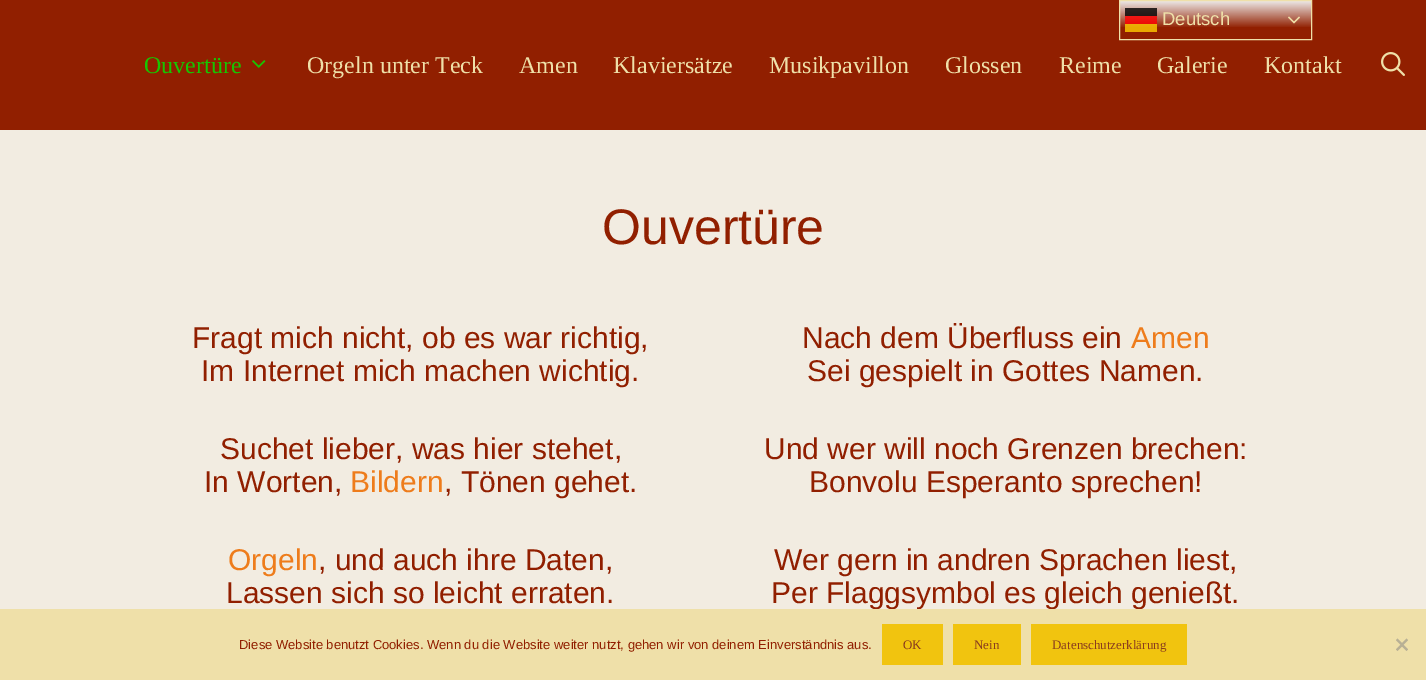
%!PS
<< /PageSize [1426 680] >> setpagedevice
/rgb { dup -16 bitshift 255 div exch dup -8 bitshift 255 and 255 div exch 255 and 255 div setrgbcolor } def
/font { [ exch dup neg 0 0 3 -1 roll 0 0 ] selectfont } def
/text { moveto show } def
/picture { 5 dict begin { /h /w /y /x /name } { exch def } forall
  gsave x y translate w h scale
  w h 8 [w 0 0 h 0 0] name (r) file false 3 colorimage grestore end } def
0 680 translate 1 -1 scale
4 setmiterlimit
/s1 { /LiberationSans-Regular 18.5 font 16#EFE0A9 rgb } def
/s2 { /LiberationSerif-Regular 24 font 16#17C600 rgb } def
/s3 { /LiberationSerif-Regular 24 font 16#EFE0A9 rgb } def
/s4 { /LiberationSans-Regular 50 font 16#911F00 rgb } def
/s5 { /LiberationSans-Regular 30 font 16#911F00 rgb } def
/s6 { /LiberationSans-Regular 30 font 16#EE7C1B rgb } def
/s7 { /LiberationSans-Regular 13 font 16#911F00 rgb } def
/s8 { /LiberationSerif-Regular 13 font 16#8A3C1E rgb } def
16#F2ECE1 rgb
0 0 1426 680 rectfill
16#911F00 rgb
0 0 1426 130 rectfill
gsave 1120 1 moveto 1311 1 lineto 1311 28 lineto 1120 28 lineto closepath clip newpath
<< /ShadingType 2 /ColorSpace /DeviceRGB /Coords [1216 0 1216 40] /Extend [true true] /Function << /FunctionType 3 /Domain [0 1] /Functions [<< /FunctionType 2 /Domain [0 1] /C0 [0.937 0.937 0.937] /C1 [0.569 0.122 0] /N 1 >> << /FunctionType 2 /Domain [0 1] /C0 [0.569 0.122 0] /C1 [0.569 0.122 0] /N 1 >>] /Bounds [0.7] /Encode [0 1 0 1] >> >> shfill grestore
gsave 1125 16 moveto 1157 16 lineto 1157 24 lineto 1125 24 lineto closepath clip newpath
<< /ShadingType 2 /ColorSpace /DeviceRGB /Coords [1216 0 1216 40] /Extend [true true] /Function << /FunctionType 3 /Domain [0 1] /Functions [<< /FunctionType 2 /Domain [0 1] /C0 [0.988 0.188 0.188] /C1 [0.914 0.024 0] /N 1 >> << /FunctionType 2 /Domain [0 1] /C0 [0.914 0.024 0] /C1 [0.914 0.024 0] /N 1 >>] /Bounds [0.7] /Encode [0 1 0 1] >> >> shfill grestore
gsave 1125 8 moveto 1157 8 lineto 1157 16 lineto 1125 16 lineto closepath clip newpath
<< /ShadingType 2 /ColorSpace /DeviceRGB /Coords [1216 0 1216 40] /Extend [true true] /Function << /FunctionType 3 /Domain [0 1] /Functions [<< /FunctionType 2 /Domain [0 1] /C0 [0.188 0.188 0.188] /C1 [0.114 0.024 0] /N 1 >> << /FunctionType 2 /Domain [0 1] /C0 [0.114 0.024 0] /C1 [0.114 0.024 0] /N 1 >>] /Bounds [0.7] /Encode [0 1 0 1] >> >> shfill grestore
gsave 1125 24 moveto 1157 24 lineto 1157 32 lineto 1125 32 lineto closepath clip newpath
<< /ShadingType 2 /ColorSpace /DeviceRGB /Coords [1216 0 1216 40] /Extend [true true] /Function << /FunctionType 3 /Domain [0 1] /Functions [<< /FunctionType 2 /Domain [0 1] /C0 [0.988 0.827 0.188] /C1 [0.914 0.663 0] /N 1 >> << /FunctionType 2 /Domain [0 1] /C0 [0.914 0.663 0] /C1 [0.914 0.663 0] /N 1 >>] /Bounds [0.7] /Encode [0 1 0 1] >> >> shfill grestore
16#EFE0A9 rgb
1119.5 0.5 192 39 rectstroke
s1
(Deutsch) 1162 25 text
(pic1.raw) 1288 16 12 8 picture
s2
(Ouvertüre) 144 73 text
(pic2.raw) 252 60 14 8 picture
s3
(Orgeln unter Teck) 307 73 text
(Amen) 519 73 text
(Klaviersätze) 613 73 text
(Musikpavillon) 769 73 text
(Glossen) 945 73 text
(Reime) 1059 73 text
(Galerie) 1157 73 text
(Kontakt) 1264 73 text
(pic3.raw) 1381 52 24 24 picture
s4
(Ouvertüre) 602 244 text
s5
(Fragt mich nicht, ob es war richtig,) 192 348 text
(Im Internet mich machen wichtig.) 201 381 text
(Nach dem Überfluss ein) 802 348 text
s6
(Amen) 1131 348 text
s5
(Sei gespielt in Gottes Namen.) 807 381 text
(Suchet lieber, was hier stehet,) 220 459 text
(In Worten,) 204 492 text
s6
(Bildern) 350 492 text
s5
(, Tönen gehet.) 444 492 text
(Und wer will noch Grenzen brechen:) 764 459 text
(Bonvolu Esperanto sprechen!) 809 492 text
s6
(Orgeln) 228 570 text
s5
(, und auch ihre Daten,) 318 570 text
(Lassen sich so leicht erraten.) 226 603 text
(Wer gern in andren Sprachen liest,) 774 570 text
(Per Flaggsymbol es gleich genießt.) 771 603 text
16#EFE0A9 rgb
0 609 1426 71 rectfill
s7
(Diese Website benutzt Cookies. Wenn du die Website weiter nutzt, gehen wir von deinem Einverständnis aus.) 239 649 text
16#F1C40F rgb
882 624 61 41 rectfill
s8
(OK) 903 649 text
16#F1C40F rgb
953 624 68 41 rectfill
s8
(Nein) 974 649 text
16#F1C40F rgb
1031 624 156 41 rectfill
s8
(Datenschutzerklärung) 1052 649 text
16#B8B095 rgb
1406.5 638.5 moveto 1408 640 lineto 1397.5 651 lineto 1396 649.5 lineto closepath fill
1396 640 moveto 1397.5 638.5 lineto 1408 649.5 lineto 1406.5 651 lineto closepath fill
showpage
